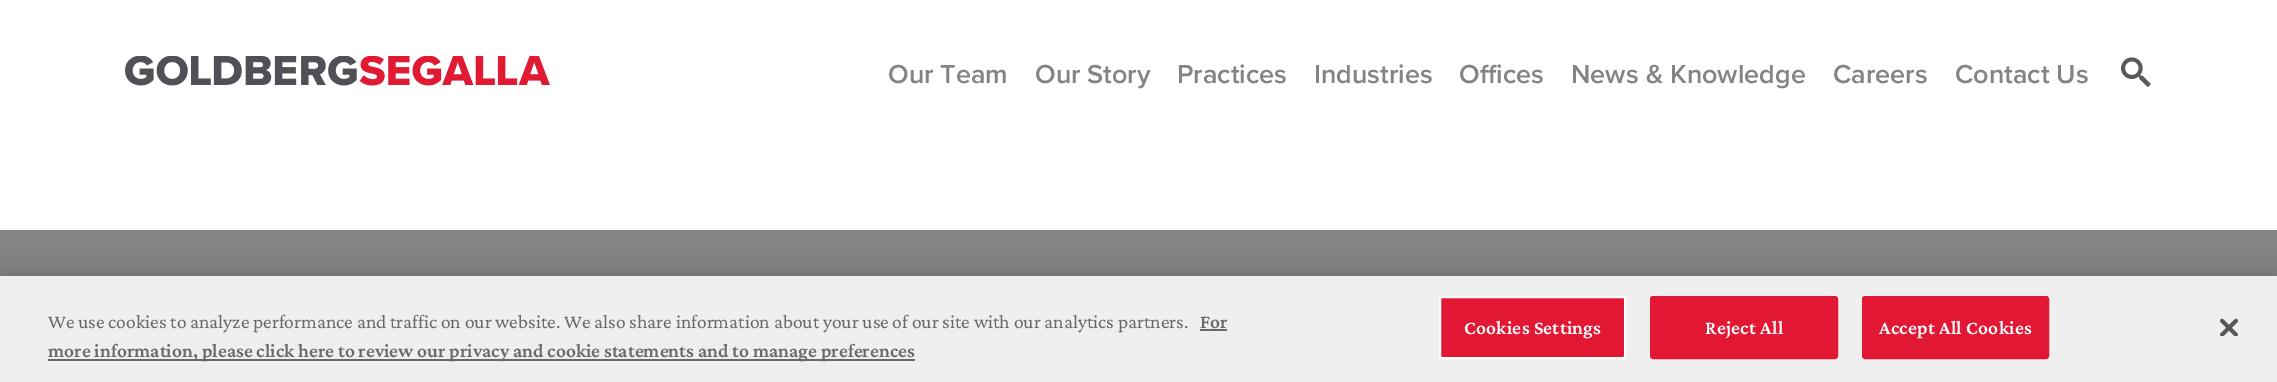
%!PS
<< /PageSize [2277 382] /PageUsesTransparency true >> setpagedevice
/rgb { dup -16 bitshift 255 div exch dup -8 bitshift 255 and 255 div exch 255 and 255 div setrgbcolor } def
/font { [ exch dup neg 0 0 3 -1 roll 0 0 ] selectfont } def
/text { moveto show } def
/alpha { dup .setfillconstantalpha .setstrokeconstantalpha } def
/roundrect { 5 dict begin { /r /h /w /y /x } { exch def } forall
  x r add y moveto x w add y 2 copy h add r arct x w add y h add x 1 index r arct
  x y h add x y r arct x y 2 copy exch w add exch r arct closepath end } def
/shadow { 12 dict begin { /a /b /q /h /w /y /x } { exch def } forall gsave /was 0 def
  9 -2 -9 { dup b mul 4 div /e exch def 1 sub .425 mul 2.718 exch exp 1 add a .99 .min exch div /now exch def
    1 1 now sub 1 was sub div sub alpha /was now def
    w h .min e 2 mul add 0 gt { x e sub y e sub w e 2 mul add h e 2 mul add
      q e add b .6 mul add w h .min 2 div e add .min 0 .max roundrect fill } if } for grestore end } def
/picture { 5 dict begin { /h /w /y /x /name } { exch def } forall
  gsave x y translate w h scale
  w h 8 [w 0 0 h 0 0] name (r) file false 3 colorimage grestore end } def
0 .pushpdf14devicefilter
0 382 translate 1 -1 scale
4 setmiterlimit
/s1 { /ProximaNova-SemiBold 27 font 16#848484 rgb } def
/s2 { /CrimsonPro-Regular 19.5 font 16#696969 rgb } def
/s3 { /CrimsonPro-SemiBold 19.5 font 16#696969 rgb } def
16#FFFFFF rgb
0 0 2277 382 rectfill
(pic1.raw) 125 56 425 30 picture
s1
(Our Team) 888 83 text
(Our Story) 1035 83 text
(Practices) 1177 83 text
(Industries) 1314 83 text
(Offices) 1459 83 text
(News & Knowledge) 1571 83 text
(Careers) 1833 83 text
(Contact Us) 1955 83 text
(pic2.raw) 2121 57 30 31 picture
0 230 2277 46 rectfill
16#000000 rgb
0 276 2277 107 0 13.5 0.2 shadow
16#EFEFEF rgb
0 276 2277 106 rectfill
s2
(We use cookies to analyze performance and traffic on our website. We also share information about your use of our site with our analytics partners.) 48 328 text
s3
(For) 1200 328 text
1200 329 27 2 rectfill
48 359 867 2 rectfill
(more information, please click here to review our privacy and cookie statements and to manage preferences) 48 357 text
16#E11733 rgb
1440 297 185 61 2 roundrect gsave fill grestore
16#FFFFFF rgb
2 setlinewidth
stroke
1464 334 moveto 0.25 0 (Cookies Settings) ashow
16#E11733 rgb
1651 297 186 61 2 roundrect gsave fill grestore
stroke
16#FFFFFF rgb
1705 334 moveto 0.25 0 (Reject All) ashow
16#E11733 rgb
1863 297 185 61 2 roundrect gsave fill grestore
stroke
16#FFFFFF rgb
1879 334 moveto 0.25 0 (Accept All Cookies) ashow
(pic3.raw) 2220 318 18 18 picture
.poppdf14devicefilter showpage
